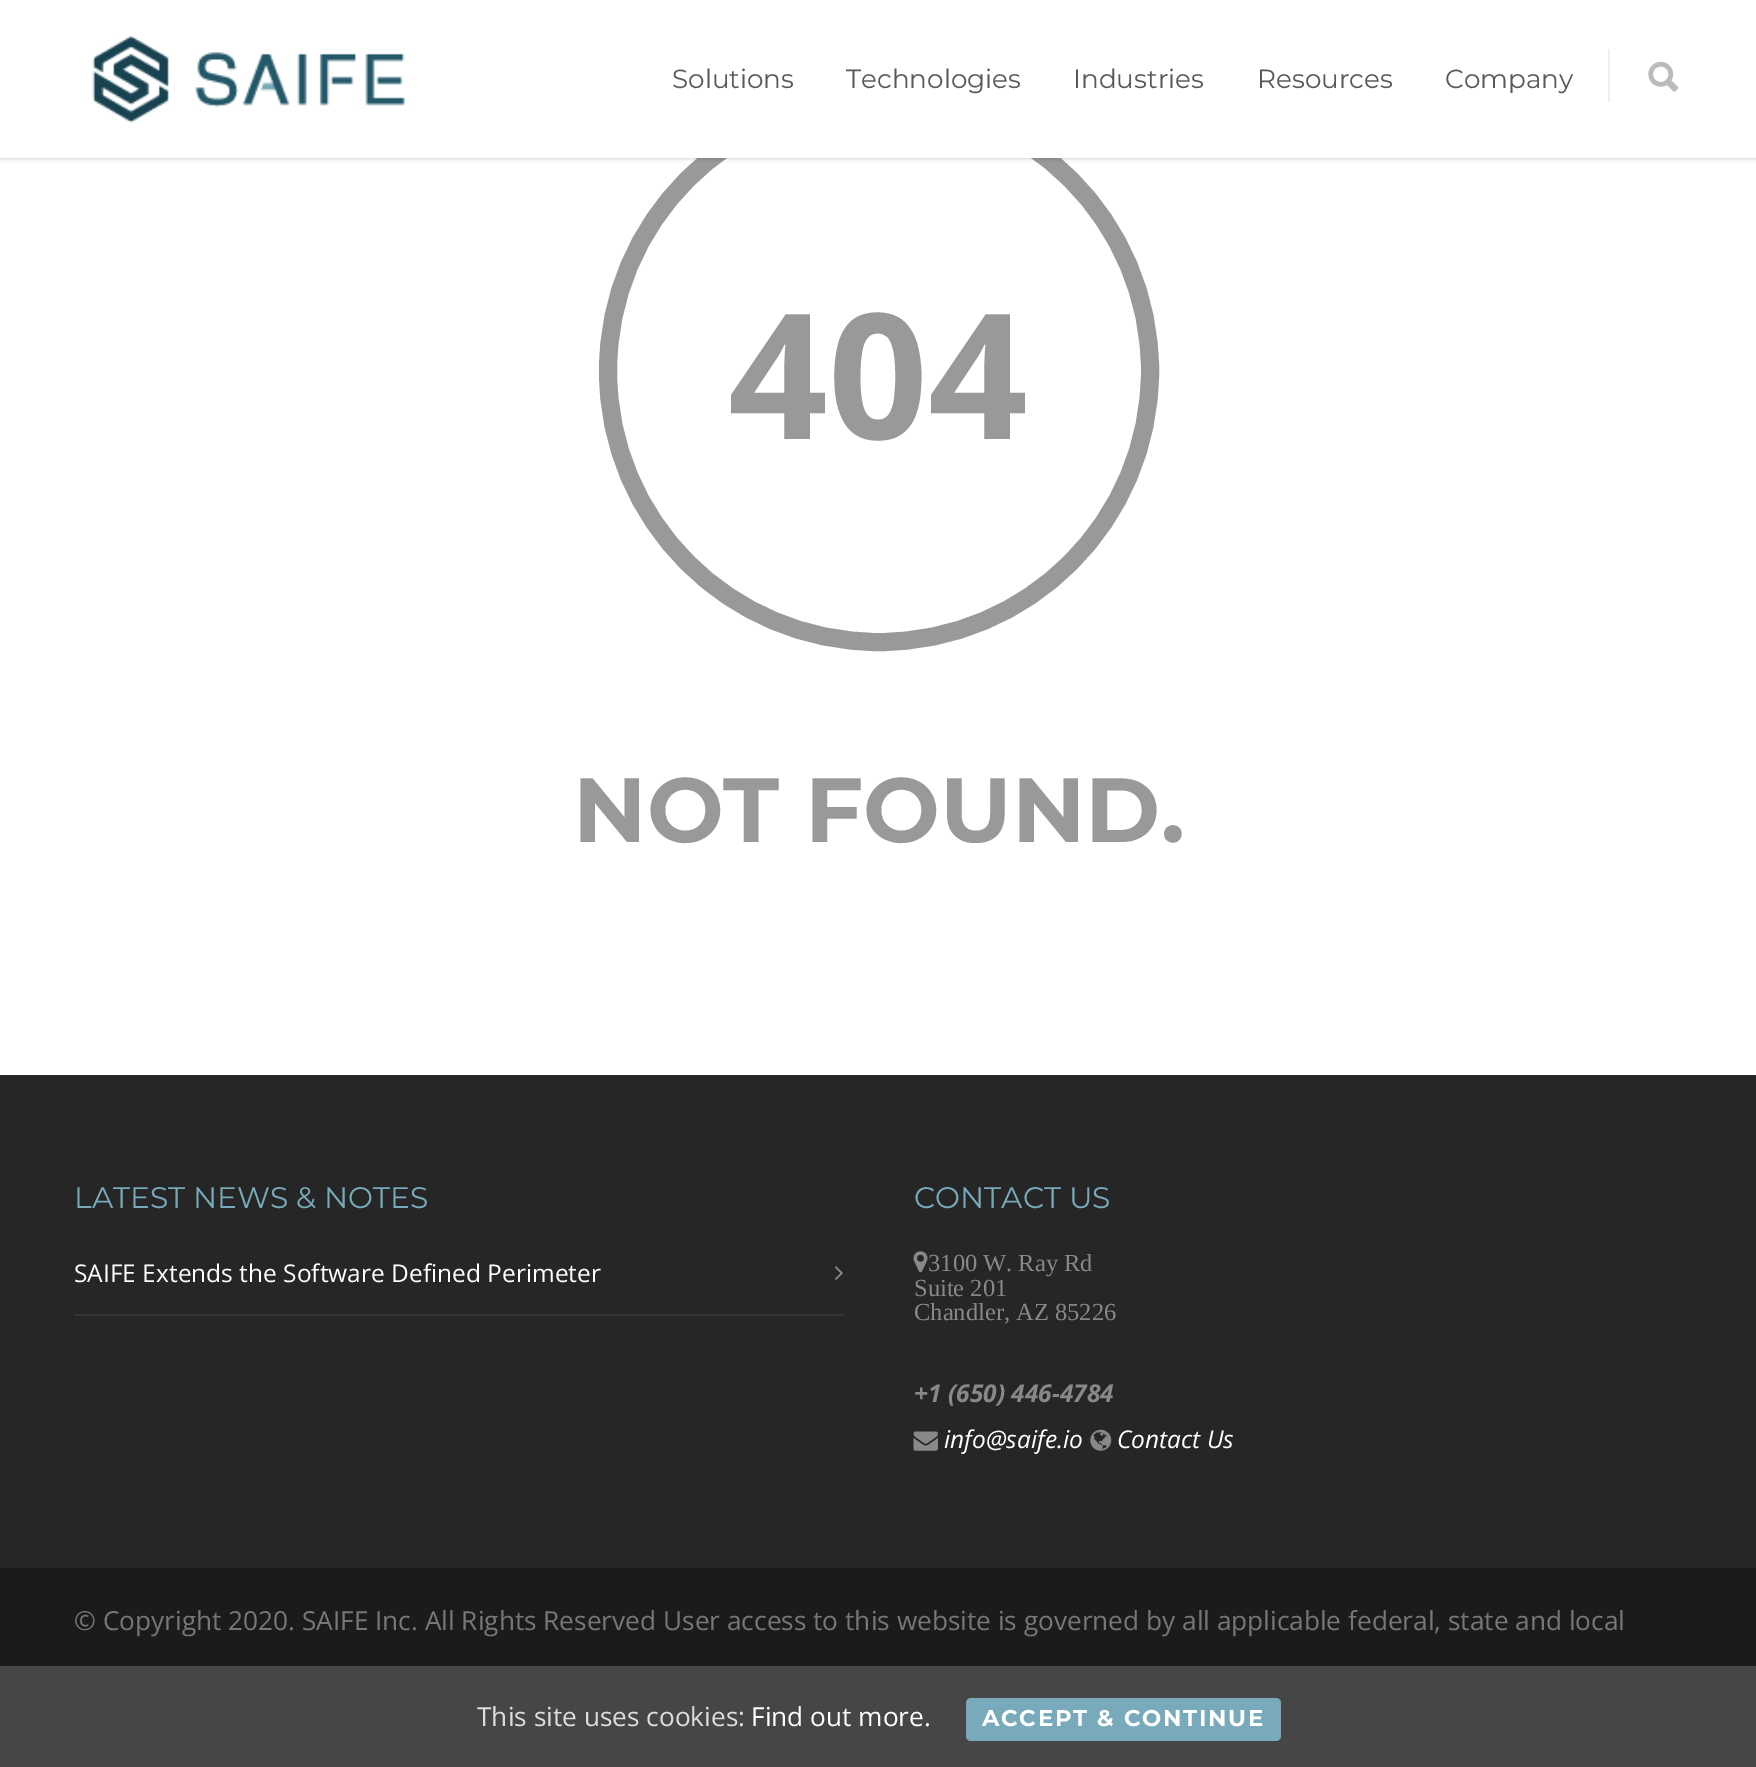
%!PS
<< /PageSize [1756 1767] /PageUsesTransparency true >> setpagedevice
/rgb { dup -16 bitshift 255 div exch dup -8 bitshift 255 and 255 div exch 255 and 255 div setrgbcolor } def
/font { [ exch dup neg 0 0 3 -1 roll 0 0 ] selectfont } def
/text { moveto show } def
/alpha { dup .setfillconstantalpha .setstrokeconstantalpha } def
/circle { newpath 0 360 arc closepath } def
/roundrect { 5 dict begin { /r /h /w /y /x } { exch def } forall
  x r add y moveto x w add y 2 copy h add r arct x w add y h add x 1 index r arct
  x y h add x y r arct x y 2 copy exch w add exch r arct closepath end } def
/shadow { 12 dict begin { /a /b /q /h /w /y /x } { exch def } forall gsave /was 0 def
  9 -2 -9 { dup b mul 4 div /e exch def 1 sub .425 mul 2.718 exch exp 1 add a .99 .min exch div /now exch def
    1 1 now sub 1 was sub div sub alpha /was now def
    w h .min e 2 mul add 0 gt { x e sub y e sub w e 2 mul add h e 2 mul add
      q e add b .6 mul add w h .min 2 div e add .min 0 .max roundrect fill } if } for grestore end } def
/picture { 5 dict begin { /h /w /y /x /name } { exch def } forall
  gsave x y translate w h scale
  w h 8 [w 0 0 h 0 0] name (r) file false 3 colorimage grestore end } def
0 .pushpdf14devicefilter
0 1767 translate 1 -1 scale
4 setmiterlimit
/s1 { /Montserrat-Regular 26.25 font 16#58595B rgb } def
/s2 { /OpenSans-Bold 175 font 16#999999 rgb } def
/s3 { /Montserrat-Bold 91 font 16#999999 rgb } def
/s4 { /Montserrat-Regular 29.75 font 16#78AABB rgb } def
/s5 { /OpenSans-Regular 24.5 font 16#FFFFFF rgb } def
/s6 { /LiberationSerif-Regular 24.5 font 16#888888 rgb } def
/s7 { /OpenSans-BoldItalic 24.5 font 16#888888 rgb } def
/s8 { /OpenSans-Italic 24.5 font 16#FFFFFF rgb } def
/s9 { /OpenSans-Regular 26.25 font 16#777777 rgb } def
/s10 { /OpenSans-Regular 26.25 font 16#DDDDDD rgb } def
/s11 { /OpenSans-Regular 26.25 font 16#FFFFFF rgb } def
16#FFFFFF rgb
0 0 1756 1767 rectfill
16#999999 rgb
18 setlinewidth
879 371 271 circle stroke
16#000000 rgb
-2 -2 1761 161 0 2 0.16 shadow
16#FFFFFF rgb
0 0 1756 158 rectfill
(pic1.raw) 92 36 313 87 picture
s1
(Solutions) 672 88 text
(Technologies) 846 88 text
(Industries) 1073 88 text
(Resources) 1257 88 text
(Company) 1445 88 text
16#EFEFEF rgb
1608 49 2 53 rectfill
(pic2.raw) 1648 61 31 31 picture
s2
(404) 728 439 text
s3
(NOT FOUND.) 573 842 text
16#262626 rgb
0 1075 1756 493 rectfill
s4
(LATEST NEWS & NOTES) 74 1208 text
16#333333 rgb
74 1314 770 2 rectfill
s5
(SAIFE Extends the Software Defined Perimeter) 74 1282 text
(pic3.raw) 835 1266 8 14 picture
s4
(CONTACT US) 914 1208 text
(pic4.raw) 913 1251 15 22 picture
s6
(3100 W. Ray Rd) 928 1271 text
(Suite 201) 914 1296 text
(Chandler, AZ 85226) 914 1320 text
s7
(+1 \(650\) 446-4784) 914 1402 text
(pic5.raw) 913 1431 25 20 picture
s8
(info@saife.io) 944 1448 text
(pic6.raw) 1090 1429 22 22 picture
(Contact Us) 1117 1448 text
16#1B1B1B rgb
0 1568 1756 98 rectfill
s9
(© Copyright 2020. SAIFE Inc. All Rights Reserved User access to this website is governed by all applicable federal, state and local) 74 1630 text
16#464646 rgb
0 1666 1756 101 rectfill
s10
(This site uses cookies:) 477 1726 text
s11
(Find out more.) 751 1726 text
16#78AABB rgb
966 1698 315 43 5 roundrect fill
/Montserrat-Bold 22.75 font
16#FFFFFF rgb
982 1726 moveto 1.75 0 (ACCEPT & CONTINUE) ashow
.poppdf14devicefilter showpage
